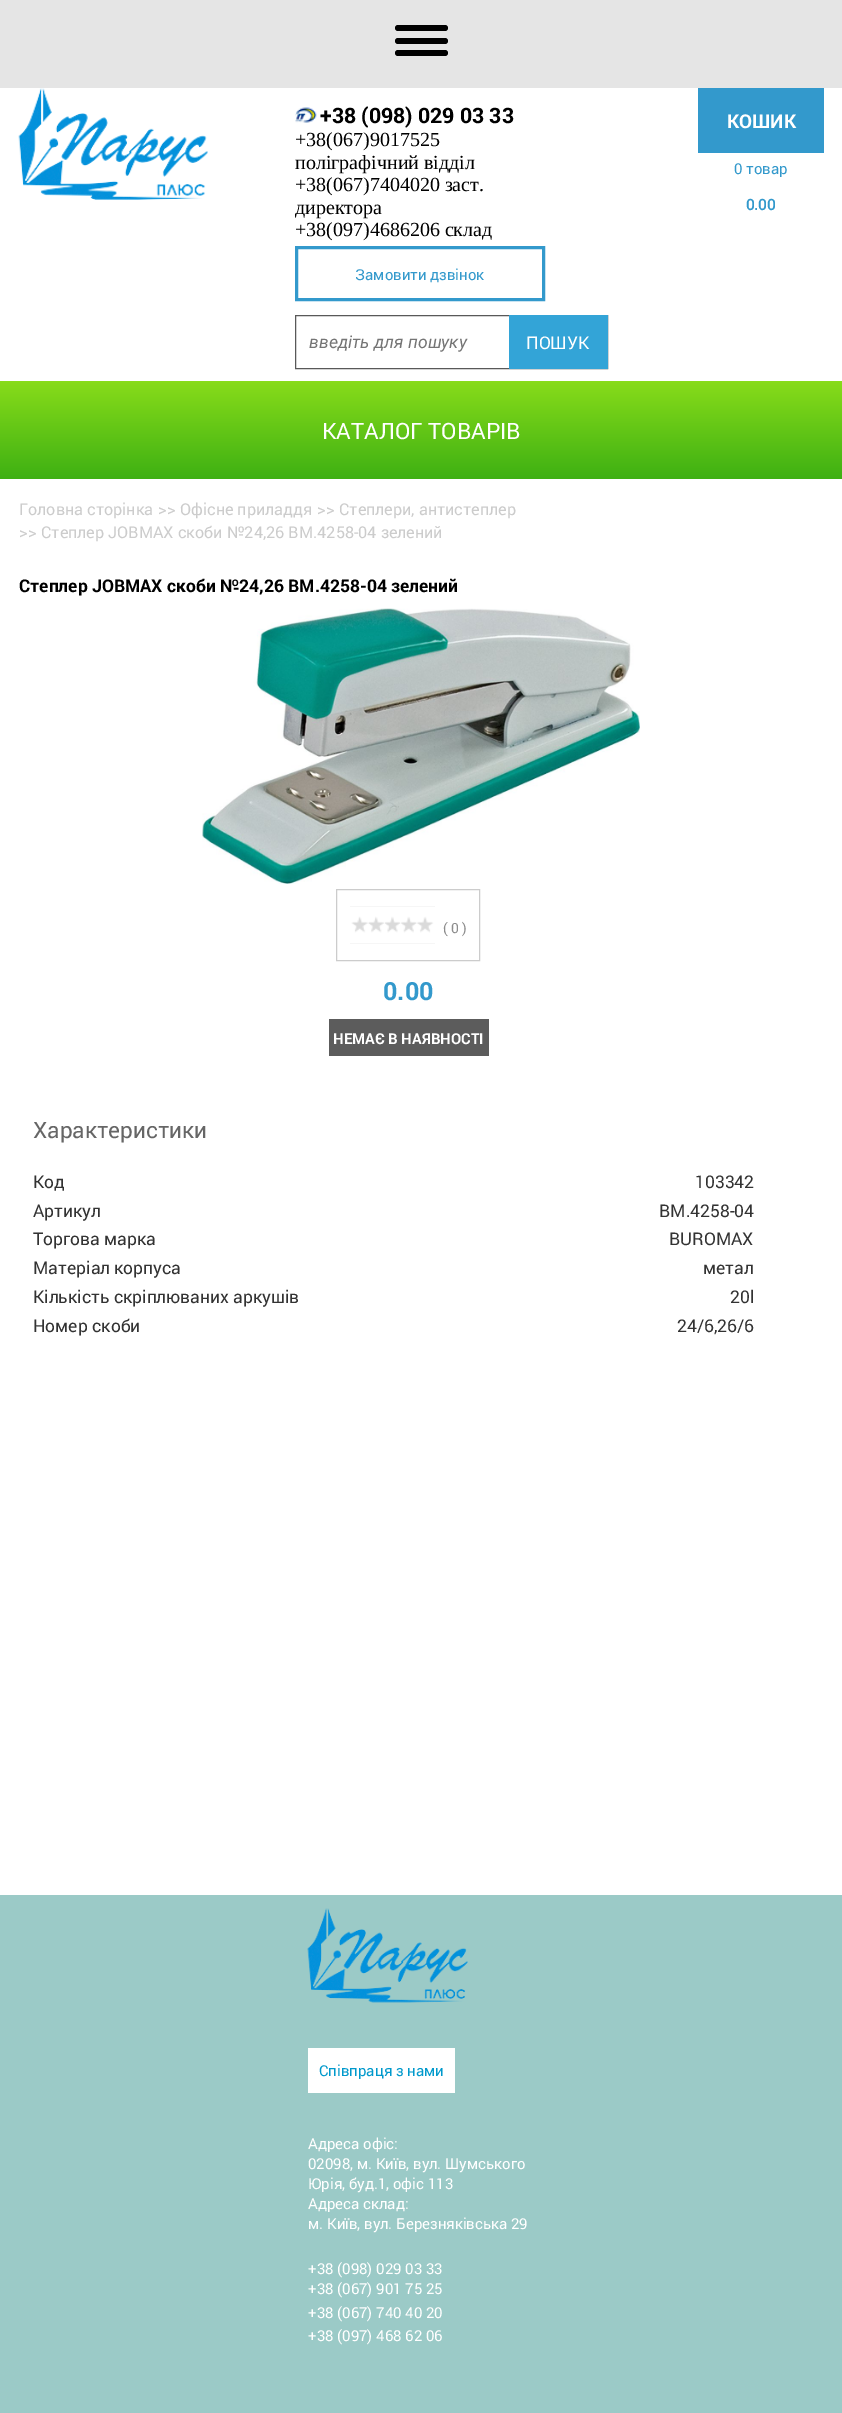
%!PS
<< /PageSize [842 2413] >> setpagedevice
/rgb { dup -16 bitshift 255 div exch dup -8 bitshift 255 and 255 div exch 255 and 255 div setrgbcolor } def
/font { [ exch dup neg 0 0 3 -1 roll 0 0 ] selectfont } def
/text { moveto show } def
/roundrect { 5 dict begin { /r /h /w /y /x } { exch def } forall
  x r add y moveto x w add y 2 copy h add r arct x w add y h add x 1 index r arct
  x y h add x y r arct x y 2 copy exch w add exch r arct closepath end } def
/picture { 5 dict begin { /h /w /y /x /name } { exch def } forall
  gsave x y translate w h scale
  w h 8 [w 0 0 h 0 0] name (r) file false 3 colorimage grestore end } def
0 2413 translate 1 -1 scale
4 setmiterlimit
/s1 { /Roboto-Bold 21.25 font 16#000000 rgb } def
/s2 { /LiberationSerif-Regular 20 font 16#000000 rgb } def
/s3 { /Roboto-Regular 15 font 16#3399CC rgb } def
/s4 { /Roboto-Italic 17.5 font 16#757575 rgb } def
/s5 { /Roboto-Regular 17.5 font 16#FFFFFF rgb } def
/s6 { /Roboto-Bold 19 font 16#FFFFFF rgb } def
/s7 { /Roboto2-Bold 15 font 16#3399CC rgb } def
/s8 { /Roboto-Regular 22.5 font 16#FFFFFF rgb } def
/s9 { /Roboto-Regular 16.25 font 16#CCCCCC rgb } def
/s10 { /Roboto-Bold 17.5 font 16#000000 rgb } def
/s11 { /Roboto-Regular 14 font 16#8D8D8D rgb } def
/s12 { /Roboto-Bold 25 font 16#3399CC rgb } def
/s13 { /Roboto-Bold 15 font 16#FFFFFF rgb } def
/s14 { /Roboto-Regular 22.5 font 16#666666 rgb } def
/s15 { /Roboto-Regular 17.5 font 16#333333 rgb } def
/s16 { /Roboto-Regular 15 font 16#0099CC rgb } def
/s17 { /Roboto-Regular 15 font 16#FFFFFF rgb } def
16#FFFFFF rgb
0 0 842 2413 rectfill
16#E5E5E5 rgb
0 0 842 88 rectfill
16#000000 rgb
395 25 53 6 3 roundrect fill
395 38 53 6 3 roundrect fill
395 50 53 6 3 roundrect fill
(pic1.raw) 18 88 190 112 picture
(pic2.raw) 295 107 22 16 picture
s1
(+38 \(098\) 029 03 33) 320 123 text
s2
(+38\(067\)9017525) 295 146 text
(поліграфічний відділ) 295 169 text
(+38\(067\)7404020 заст.) 295 191 text
(директора) 295 214 text
(+38\(097\)4686206 склад) 295 236 text
16#3399CC rgb
3 setlinewidth
296.5 247.5 247 52 rectstroke
s3
(Замовити дзвінок) 355 280 text
16#595959 rgb
1 setlinewidth
295.5 315.5 312 53 rectstroke
s4
(введіть для пошуку) 309 348 text
16#33A4D7 rgb
509 315 99 54 rectfill
s5
(ПОШУК) 526 349 text
16#3399CC rgb
698 88 126 65 rectfill
s6
(КОШИК) 727 128 text
s3
(0 товар) 734 174 text
s7
(0.00) 746 210 text
gsave 0 381 moveto 842 381 lineto 842 479 lineto 0 479 lineto closepath clip newpath
<< /ShadingType 2 /ColorSpace /DeviceRGB /Coords [421 479 421 381] /Extend [true true] /Function << /FunctionType 2 /Domain [0 1] /C0 [0.243 0.69 0.075] /C1 [0.533 0.863 0.102] /N 1 >> >> shfill grestore
s8
(КАТАЛОГ ТОВАРІВ) 322 439 text
s9
(Головна сторінка) 19 515 text
(>>) 158 515 text
(Офісне приладдя) 180 515 text
(>>) 317 515 text
(Степлери, антистеплер) 339 515 text
(>>) 19 538 text
(Степлер JOBMAX скоби №24,26 BM.4258-04 зелений) 41 538 text
s10
(Степлер JOBMAX скоби №24,26 BM.4258-04 зелений) 19 592 text
(pic3.raw) 202 608 438 276 picture
16#CCCCCC rgb
336.5 889.5 143 71 rectstroke
16#DADADA rgb
350 906 85 38 rectfill
(pic4.raw) 350 906 85 38 picture
s11
(\( 0 \)) 443 933 text
s12
(0.00) 383 1000 text
16#5C5C5C rgb
329 1019 160 37 rectfill
s13
(НЕМАЄ В НАЯВНОСТІ) 333 1044 text
s14
(Характеристики) 33 1138 text
s15
(Код) 33 1188 text
(103342) 695 1188 text
(Артикул) 33 1217 text
(BM.4258-04) 659 1217 text
(Торгова марка) 33 1245 text
(BUROMAX) 669 1245 text
(Матеріал корпуса) 33 1274 text
(метал) 703 1274 text
(Кількість скріплюваних аркушів) 33 1303 text
(20l) 730 1303 text
(Номер скоби) 33 1332 text
(24/6,26/6) 677 1332 text
16#9BCAC7 rgb
0 1895 842 518 rectfill
(pic5.raw) 307 1908 161 95 picture
16#FFFFFF rgb
308 2048 147 45 rectfill
s16
(Співпраця з нами) 319 2076 text
s17
(Адреса офіс:) 308 2149 text
(02098, м. Київ, вул. Шумського) 308 2169 text
(Юрія, буд.1, офіс 113) 308 2189 text
(Адреса склад:) 308 2209 text
(м. Київ, вул. Березняківська 29) 308 2229 text
(+38 \(098\) 029 03 33) 308 2274 text
(+38 \(067\) 901 75 25) 308 2294 text
(+38 \(067\) 740 40 20) 308 2318 text
(+38 \(097\) 468 62 06) 308 2341 text
showpage
